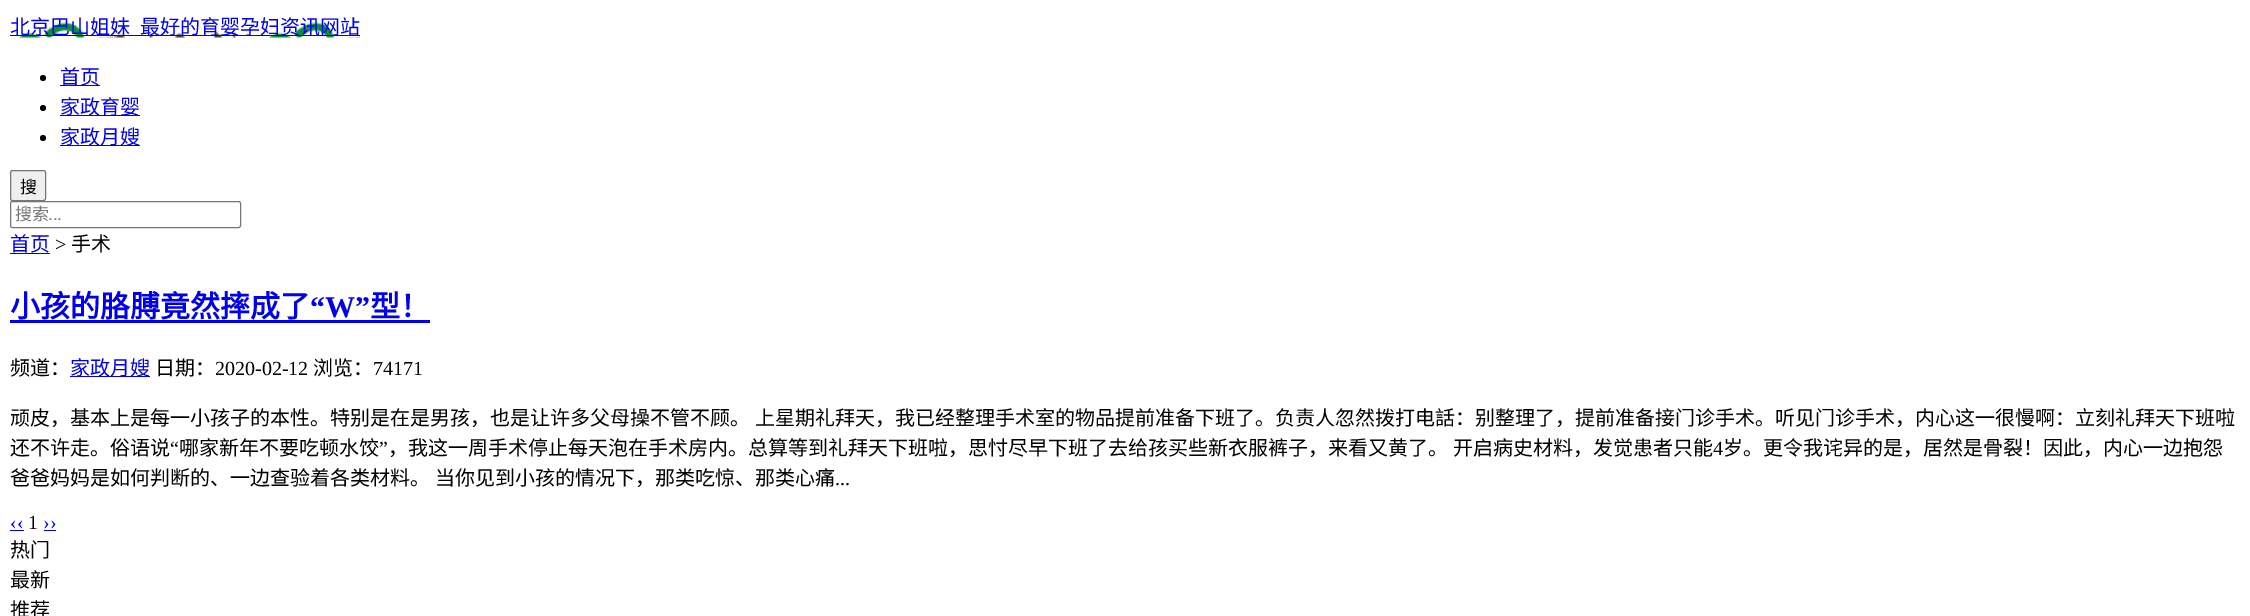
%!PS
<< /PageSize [2250 616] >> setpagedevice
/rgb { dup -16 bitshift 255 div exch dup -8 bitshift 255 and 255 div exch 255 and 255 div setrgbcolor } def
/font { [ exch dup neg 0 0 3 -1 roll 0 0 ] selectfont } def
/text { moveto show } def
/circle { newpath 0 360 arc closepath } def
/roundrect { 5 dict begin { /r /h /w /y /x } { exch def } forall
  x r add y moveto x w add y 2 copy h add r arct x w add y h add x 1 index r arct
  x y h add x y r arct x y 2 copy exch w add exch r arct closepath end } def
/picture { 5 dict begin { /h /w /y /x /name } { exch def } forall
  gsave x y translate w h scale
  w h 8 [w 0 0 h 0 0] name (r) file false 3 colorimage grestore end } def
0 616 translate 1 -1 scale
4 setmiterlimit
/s1 { /NotoSansCJKSC-Regular 20 font 16#0000EE rgb } def
/s2 { /NotoSansCJKSC-Regular 17 font 16#000000 rgb } def
/s3 { /NotoSansCJKSC-Regular 17 font 16#757575 rgb } def
/s4 { /LiberationSans-Regular 17 font 16#757575 rgb } def
/s5 { /LiberationSerif-Regular 20 font 16#000000 rgb } def
/s6 { /NotoSansCJKSC-Regular 20 font 16#000000 rgb } def
/s7 { /NotoSansCJKSC-Bold 30 font 16#0000EE rgb } def
/s8 { /LiberationSerif-Bold 30 font 16#0000EE rgb } def
/s9 { /LiberationSerif-Regular 20 font 16#0000EE rgb } def
16#FFFFFF rgb
0 0 2250 616 rectfill
(pic1.raw) 18 22 342 16 picture
16#0000EE rgb
10 35 350 1 rectfill
s1
(北京巴山姐妹) 10 34 text
(最好的育婴孕妇资讯网站) 140 34 text
16#000000 rgb
43 78 3 circle fill
16#0000EE rgb
60 85 40 1 rectfill
(首页) 60 84 text
16#000000 rgb
43 108 3 circle fill
16#0000EE rgb
60 115 80 1 rectfill
(家政育婴) 60 114 text
16#000000 rgb
43 138 3 circle fill
16#0000EE rgb
60 145 80 1 rectfill
(家政月嫂) 60 144 text
16#EFEFEF rgb
10.5 170.5 35 30 2 roundrect gsave fill grestore
16#767676 rgb
stroke
s2
(搜) 20 193 text
16#767676 rgb
10.5 201.5 230 26 2 roundrect stroke
s3
(搜索) 15 220 text
s4
(...) 48 220 text
s1
(首页) 10 251 text
10 253 40 1 rectfill
s5
(>) 55 251 text
s6
(手术) 71 251 text
s7
(小孩的胳膊竟然摔成了) 10 317 text
s8
(“W”) 310 317 text
10 320 420 3 rectfill
s7
(型！) 370 317 text
s6
(频道：) 10 375 text
16#0000EE rgb
70 376 80 1 rectfill
(家政月嫂) 70 375 text
s6
(日期：) 155 375 text
s5
(2020-02-12) 215 375 text
s6
(浏览：) 313 375 text
s5
(74171) 373 375 text
s6
(顽皮，基本上是每一小孩子的本性。特别是在是男孩，也是让许多父母操不管不顾。) 10 425 text
(上星期礼拜天，我已经整理手术室的物品提前准备下班了。负责人忽然拨打电話：别整理了，提前准备接门诊手术。听见门诊手术，内心这一很慢啊：立刻礼拜天下班啦) 755 425 text
(还不许走。俗语说) 10 455 text
s5
(“) 170 455 text
s6
(哪家新年不要吃顿水饺) 179 455 text
s5
(”) 379 455 text
s6
(，我这一周手术停止每天泡在手术房内。总算等到礼拜天下班啦，思忖尽早下班了去给孩买些新衣服裤子，来看又黄了。) 388 455 text
(开启病史材料，发觉患者只能) 1453 455 text
s5
(4) 1713 455 text
s6
(岁。更令我诧异的是，居然是骨裂！因此，内心一边抱怨) 1723 455 text
(爸爸妈妈是如何判断的、一边查验着各类材料。) 10 485 text
(当你见到小孩的情况下，那类吃惊、那类心痛) 435 485 text
s5
(...) 835 485 text
s9
(‹‹) 10 529 text
10 530 14 1 rectfill
s5
(1) 28 529 text
s9
(››) 43 529 text
44 530 12 1 rectfill
s6
(热门) 10 557 text
(最新) 10 587 text
(推荐) 10 617 text
showpage
